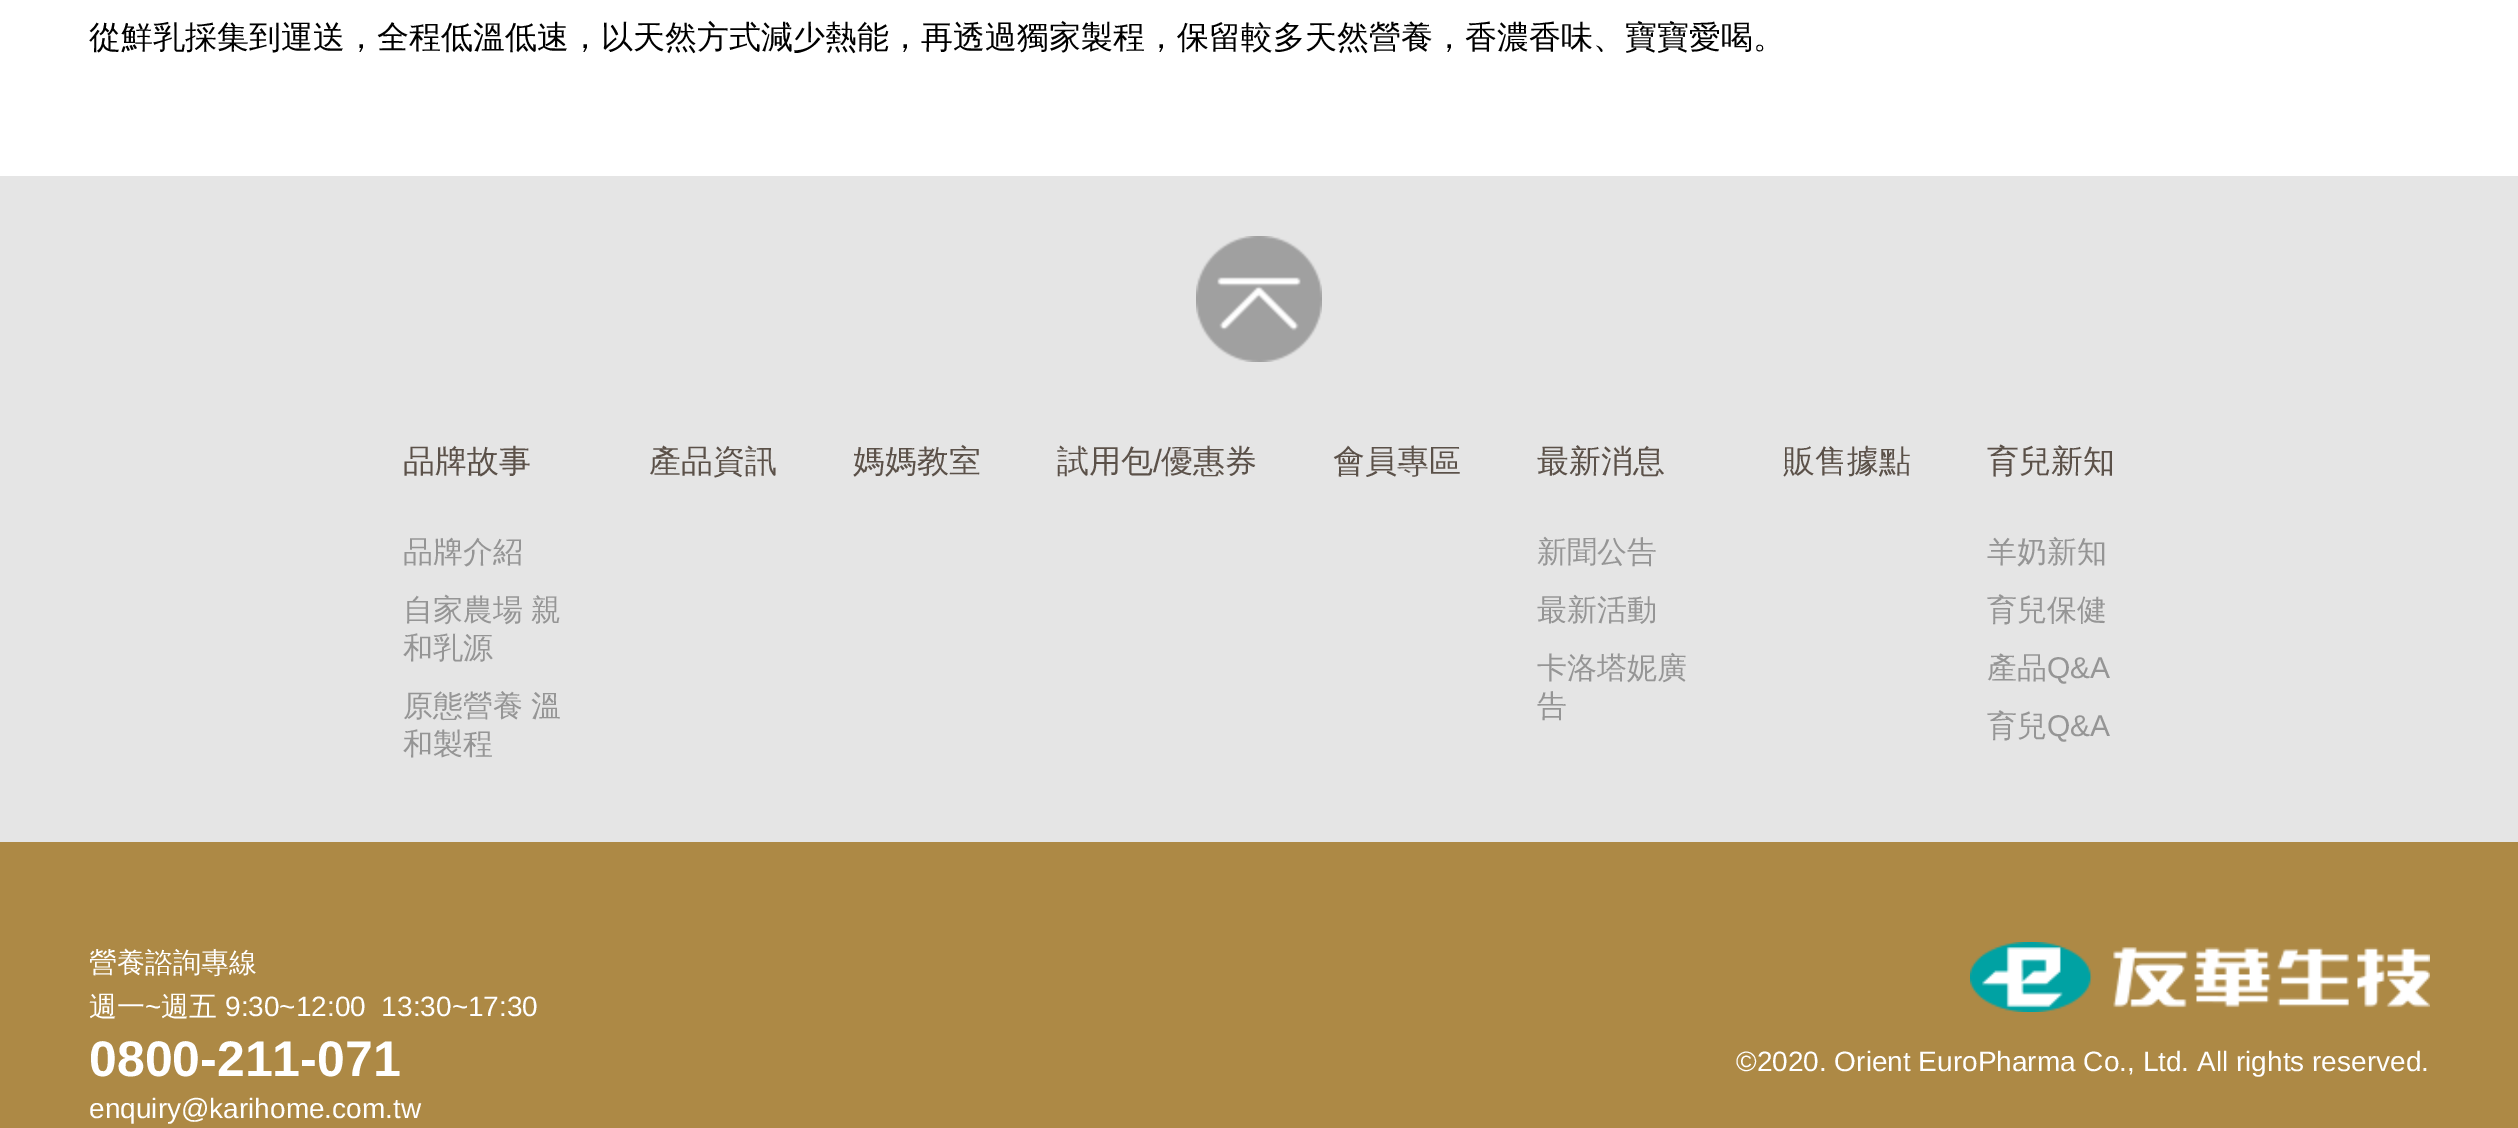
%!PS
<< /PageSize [2518 1128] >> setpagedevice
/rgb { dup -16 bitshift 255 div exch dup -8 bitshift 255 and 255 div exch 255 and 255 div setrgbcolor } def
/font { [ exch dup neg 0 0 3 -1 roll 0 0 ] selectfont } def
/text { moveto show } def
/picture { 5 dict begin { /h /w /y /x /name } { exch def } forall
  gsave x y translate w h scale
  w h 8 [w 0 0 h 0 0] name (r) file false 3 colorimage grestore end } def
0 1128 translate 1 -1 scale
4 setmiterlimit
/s1 { /WenQuanYiZenHei-Medium 32 font 16#000000 rgb } def
/s2 { /WenQuanYiZenHei-Medium 32 font 16#5B5149 rgb } def
/s3 { /WenQuanYiZenHei-Medium 30 font 16#959595 rgb } def
/s4 { /LiberationSans-Regular 32 font 16#5B5149 rgb } def
/s5 { /LiberationSans-Regular 30 font 16#959595 rgb } def
/s6 { /WenQuanYiZenHei-Medium 28 font 16#FFFFFF rgb } def
/s7 { /LiberationSans-Regular 28 font 16#FFFFFF rgb } def
/s8 { /LiberationSans-Bold 50 font 16#FFFFFF rgb } def
16#FFFFFF rgb
0 0 2518 1128 rectfill
s1
(從鮮乳採集到運送，全程低溫低速，以天然方式減少熱能，再透過獨家製程，保留較多天然營養，香濃香味、寶寶愛喝。) 89 48 text
16#AD8945 rgb
0 842 2518 286 rectfill
16#E5E5E5 rgb
0 176 2518 666 rectfill
(pic1.raw) 1196 236 126 126 picture
s2
(品牌故事) 403 472 text
s3
(品牌介紹) 403 562 text
403 620 moveto -1 0 32 (自家農場 親) widthshow
(和乳源) 403 658 text
403 716 moveto -1 0 32 (原態營養 溫) widthshow
(和製程) 403 754 text
s2
(產品資訊) 649 472 text
(媽媽教室) 853 472 text
(試用包) 1057 472 text
s4
(/) 1153 472 text
s2
(優惠券) 1161 472 text
(會員專區) 1333 472 text
(最新消息) 1537 472 text
s3
(新聞公告) 1537 562 text
(最新活動) 1537 620 text
(卡洛塔妮廣) 1537 678 text
(告) 1537 716 text
s2
(販售據點) 1783 472 text
(育兒新知) 1987 472 text
s3
(羊奶新知) 1987 562 text
(育兒保健) 1987 620 text
(產品) 1987 678 text
s5
(Q&A) 2047 678 text
s3
(育兒) 1987 736 text
s5
(Q&A) 2047 736 text
s6
(營養諮詢專線) 89 972 text
(週一) 89 1016 text
s7
(~) 145 1016 text
s6
(週五) 161 1016 text
s7
(9:30~12:00  13:30~17:30) 225 1016 text
s8
(0800-211-071) 89 1076 text
s7
(enquiry@karihome.com.tw) 89 1118 text
(pic2.raw) 1970 942 460 70 picture
(©2020. Orient EuroPharma Co., Ltd. All rights reserved.) 1736 1071 text
showpage
